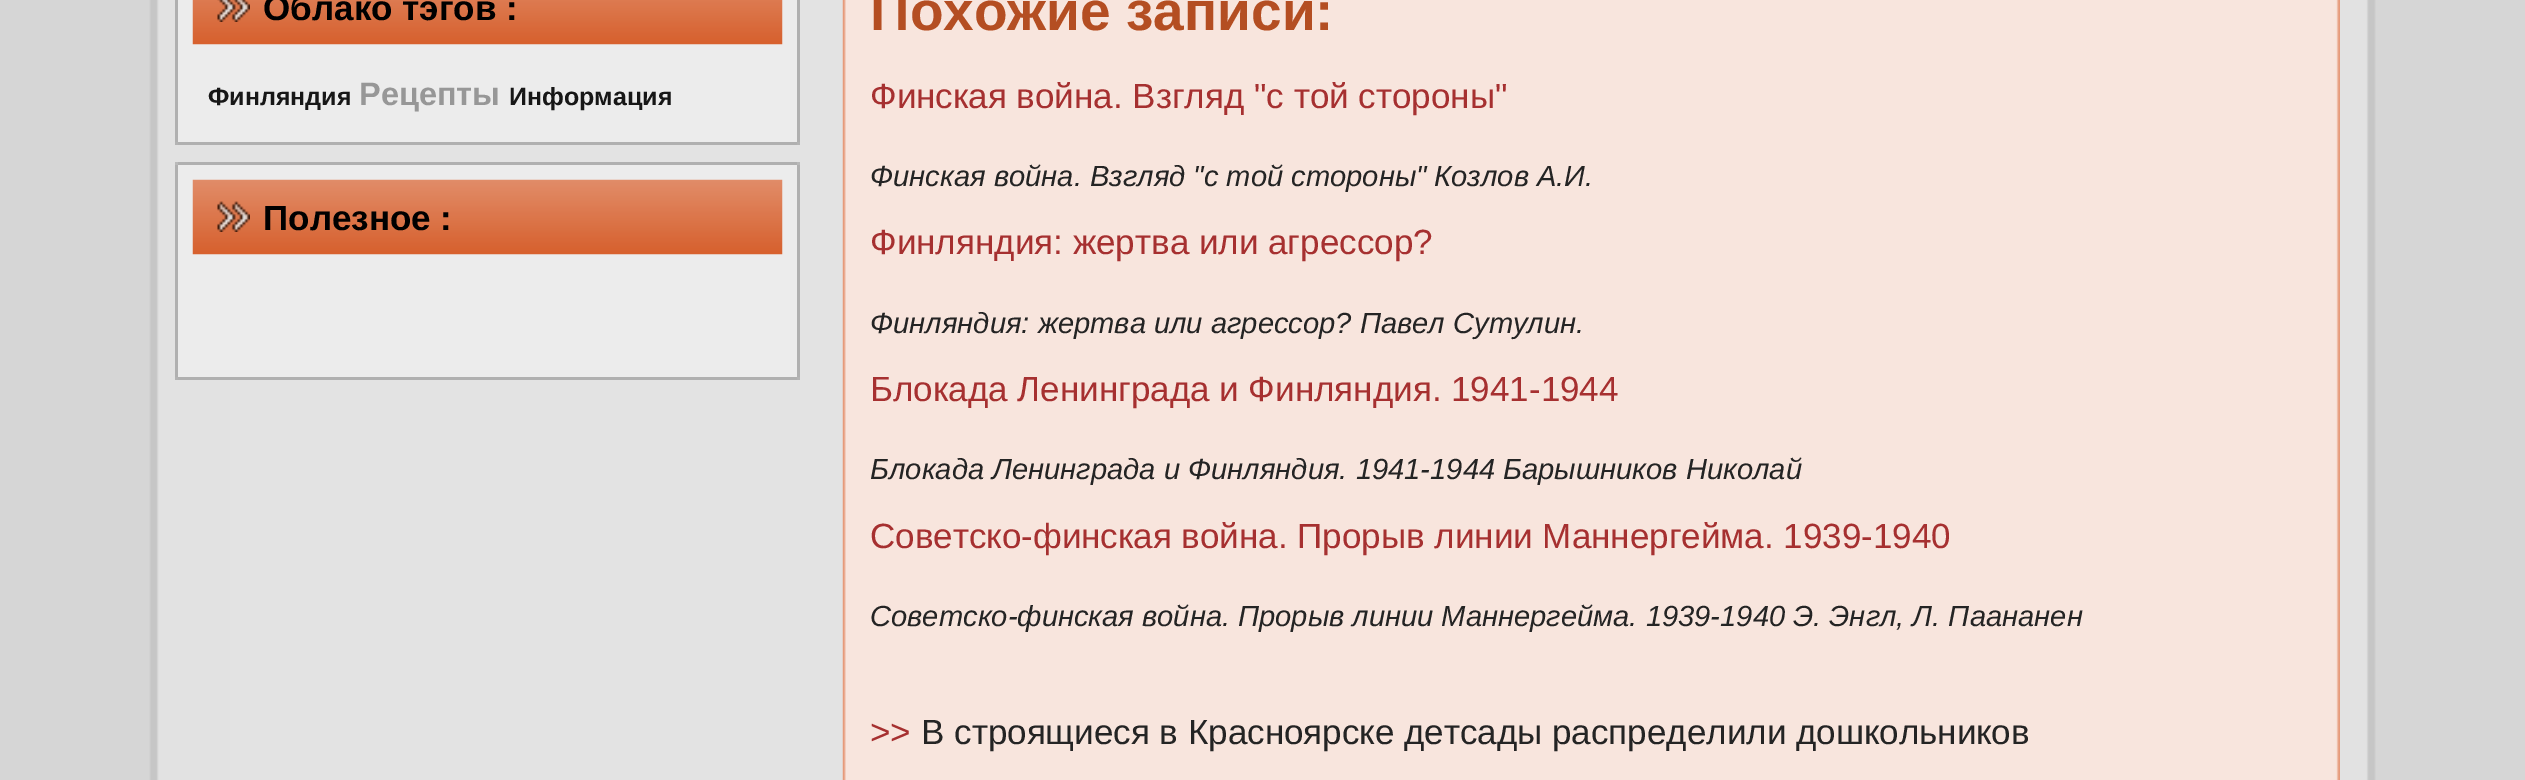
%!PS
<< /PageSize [2525 780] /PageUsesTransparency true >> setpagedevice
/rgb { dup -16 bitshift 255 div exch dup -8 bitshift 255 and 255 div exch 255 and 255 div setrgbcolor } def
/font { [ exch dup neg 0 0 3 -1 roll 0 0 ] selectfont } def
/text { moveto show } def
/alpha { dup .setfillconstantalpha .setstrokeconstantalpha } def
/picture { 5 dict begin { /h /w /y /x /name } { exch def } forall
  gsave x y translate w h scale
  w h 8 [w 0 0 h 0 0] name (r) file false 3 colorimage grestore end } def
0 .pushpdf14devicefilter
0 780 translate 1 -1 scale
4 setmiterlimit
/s1 { /LiberationSans-Bold 35 font 16#000000 rgb } def
/s2 { /LiberationSans-Bold 25 font 16#171717 rgb } def
/s3 { /LiberationSans-Bold 32.5 font 16#979797 rgb } def
/s4 { /LiberationSans-Bold 55 font 16#B44E22 rgb } def
/s5 { /LiberationSans-Regular 35 font 16#A63030 rgb } def
/s6 { /LiberationSans-Italic 29.15 font 16#242424 rgb } def
/s7 { /LiberationSans-Regular 35 font 16#242424 rgb } def
16#D6D6D6 rgb
0 0 2525 780 rectfill
(pic1.raw) 149 0 81 780 picture
16#B0B0B0 rgb
175 0 3 142 rectfill
16#E3E3E3 rgb
230 0 613 780 rectfill
16#ECECEC rgb
178 0 619 142 rectfill
(pic2.raw) 192 0 591 45 picture
(pic3.raw) 217 0 33 22 picture
s1
(Облако тэгов :) 263 20 text
s2
(Финляндия) 208 105 text
s3
(Рецепты) 359 105 text
s2
(Информация) 509 105 text
16#B0B0B0 rgb
797 0 3 142 rectfill
16#B3B3B3 rgb
175 142 3 3 rectfill
16#B0B0B0 rgb
178 142 619 3 rectfill
16#B4B4B4 rgb
797 142 3 3 rectfill
16#ECECEC rgb
177 164 620 213 rectfill
0.86 alpha
16#B3B3B3 rgb
175 162 3 3 rectfill
1 alpha
16#B0B0B0 rgb
178 162 619 3 rectfill
175 165 3 212 rectfill
797 165 3 212 rectfill
(pic4.raw) 192 179 591 76 picture
(pic5.raw) 217 201 33 31 picture
s1
(Полезное :) 263 230 text
16#B3B3B3 rgb
175 377 3 3 rectfill
16#B0B0B0 rgb
178 377 619 3 rectfill
16#B4B4B4 rgb
797 377 3 3 rectfill
(pic6.raw) 842 0 18 780 picture
16#F8E5DD rgb
860 0 1463 780 rectfill
s4
(Похожие записи:) 870 30 text
s5
(Финская война. Взгляд "с той стороны") 870 108 text
s6
(Финская война. Взгляд "с той стороны") 870 186 text
(Козлов А.И.) 1434 186 text
s5
(Финляндия: жертва или агрессор?) 870 254 text
s6
(Финляндия: жертва или агрессор? Павел Сутулин.) 870 333 text
s5
(Блокада Ленинграда и Финляндия. 1941-1944) 870 401 text
s6
(Блокада Ленинграда и Финляндия. 1941-1944 Барышников Николай) 870 479 text
s5
(Советско-финская война. Прорыв линии Маннергейма. 1939-1940) 870 548 text
/LiberationSans-Italic 29.15 font
16#242424 rgb
870 626 moveto -0.1 0 32 (Советско-финская война. Прорыв линии Маннергейма. 1939-1940 Э. Энгл, Л. Паананен) widthshow
s5
(>>) 870 744 text
s7
(В строящиеся в Красноярске детсады распределили дошкольников) 921 744 text
(pic7.raw) 2323 0 17 780 picture
16#B9B9B9 rgb
797 162 3 3 rectfill
(pic8.raw) 2340 0 36 780 picture
.poppdf14devicefilter showpage
